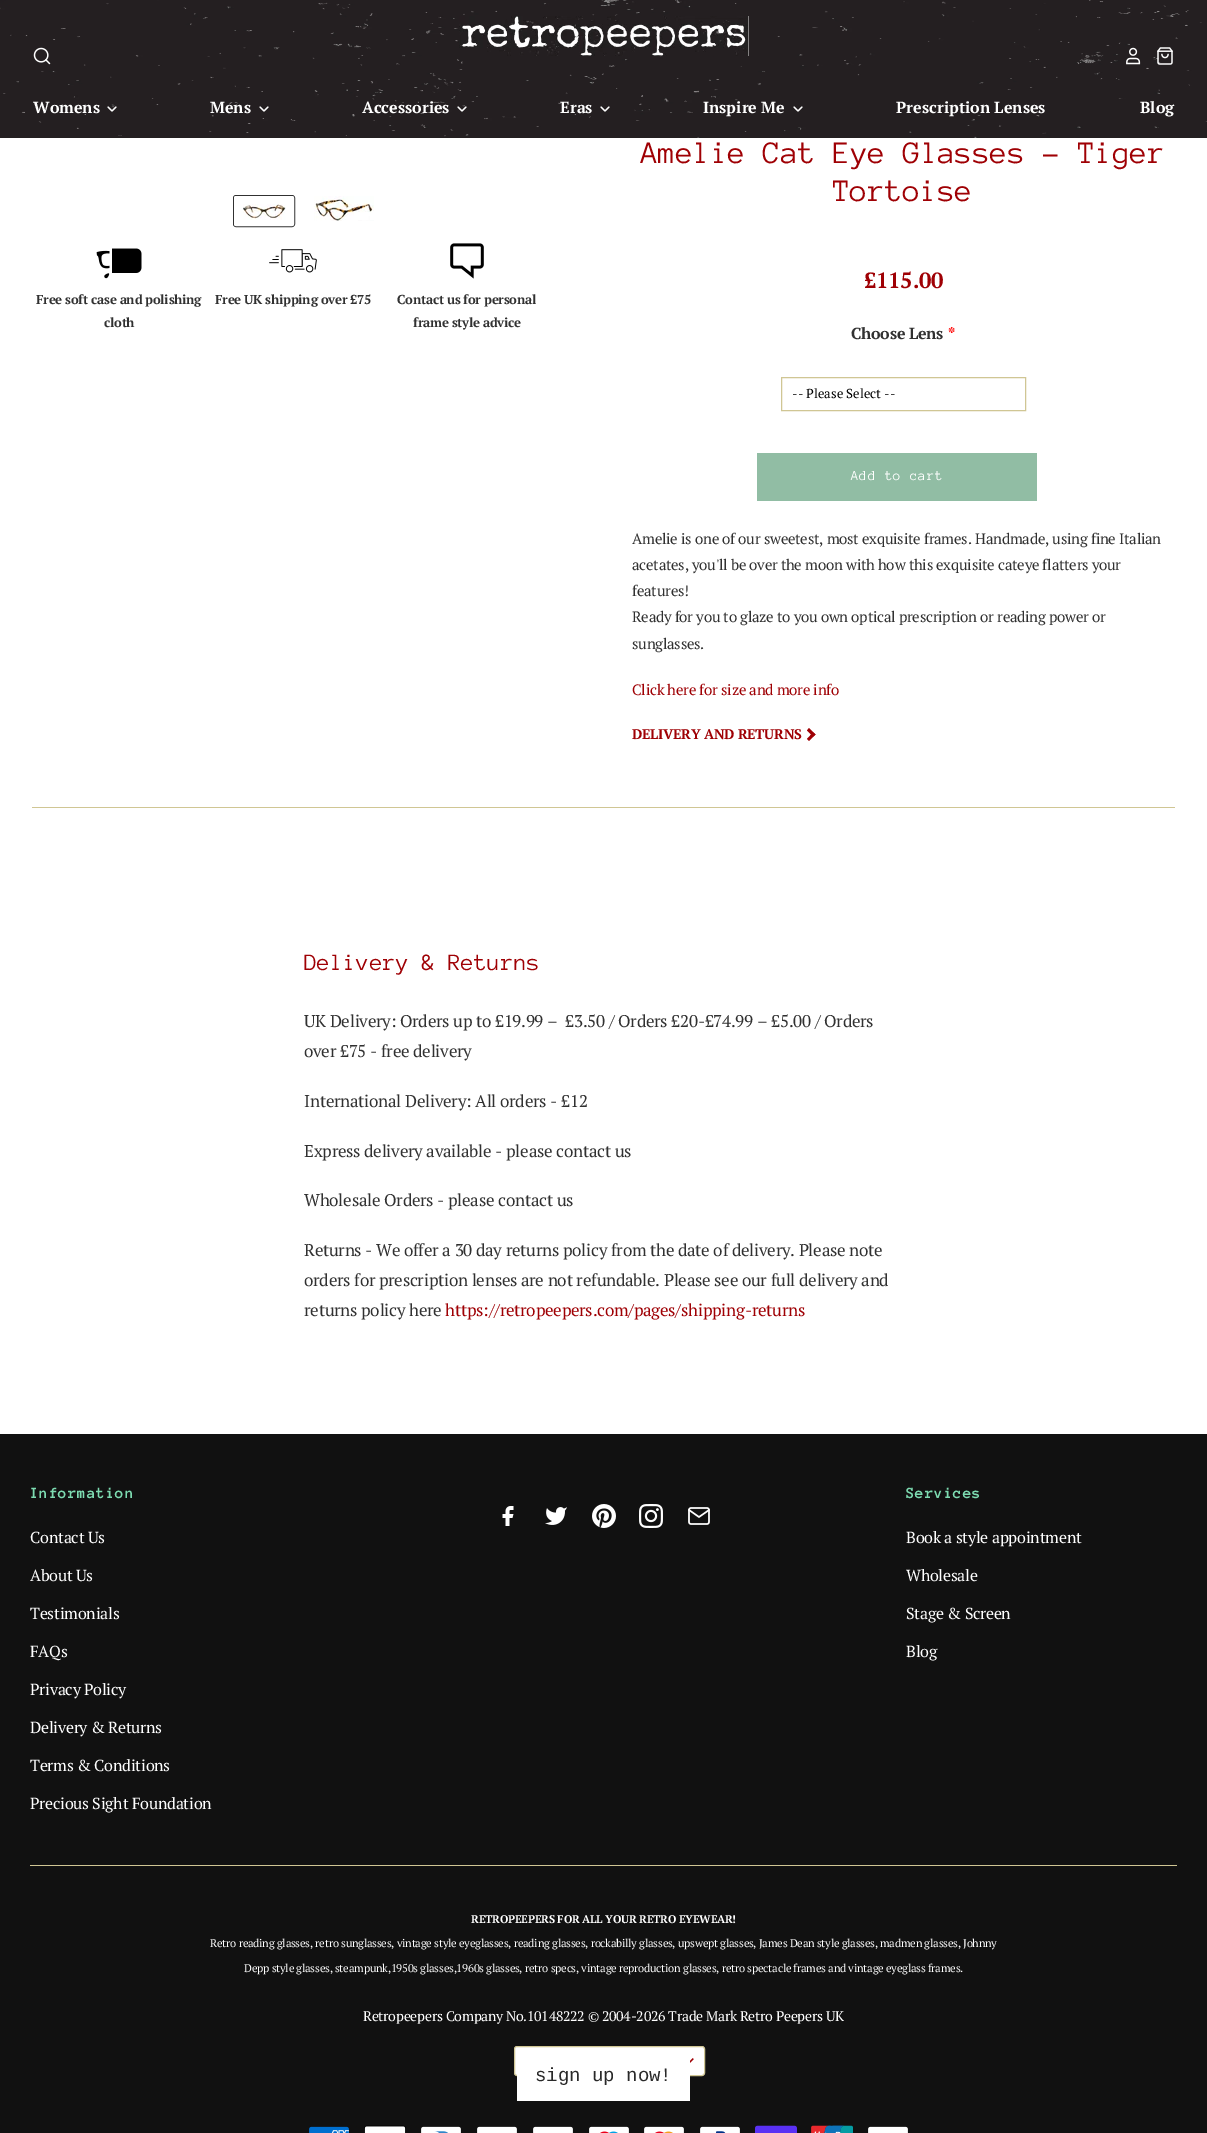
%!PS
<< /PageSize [1207 2133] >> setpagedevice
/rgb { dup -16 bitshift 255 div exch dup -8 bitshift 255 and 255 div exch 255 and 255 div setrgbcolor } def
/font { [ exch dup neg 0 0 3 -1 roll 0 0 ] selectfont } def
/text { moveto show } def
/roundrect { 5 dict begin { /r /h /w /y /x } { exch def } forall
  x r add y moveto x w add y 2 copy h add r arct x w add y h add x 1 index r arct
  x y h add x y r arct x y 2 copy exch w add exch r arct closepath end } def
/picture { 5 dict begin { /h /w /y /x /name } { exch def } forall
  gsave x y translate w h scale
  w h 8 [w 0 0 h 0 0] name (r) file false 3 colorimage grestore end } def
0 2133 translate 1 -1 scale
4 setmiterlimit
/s1 { /PTSerif-Bold 16 font 16#FFFFFF rgb } def
/s2 { /AnonymousPro-Regular 32 font 16#9F0004 rgb } def
/s3 { /PTSerif-Regular 13 font 16#000000 rgb } def
/s4 { /AnonymousPro-Regular 24 font 16#9F0004 rgb } def
/s5 { /LiberationMono-Regular 19 font 16#292929 rgb } def
16#FFFFFF rgb
0 0 1207 2133 rectfill
(pic1.raw) 0 0 1207 138 picture
(pic2.raw) 33 47 18 18 picture
(pic3.raw) 459 16 290 40 picture
(pic4.raw) 1126 47 15 18 picture
(pic5.raw) 1157 47 16 18 picture
s1
(Womens) 33 113 text
1.2 setlinewidth
1 setlinecap
1 setlinejoin
108 107 moveto 112 111 lineto 116 107 lineto stroke
(Mens) 210 113 text
260 107 moveto 264 111 lineto 268 107 lineto stroke
(Accessories) 362 113 text
458 107 moveto 462 111 lineto 466 107 lineto stroke
(Eras) 560 113 text
601 107 moveto 605 111 lineto 609 107 lineto stroke
(Inspire Me) 703 113 text
794 107 moveto 798 111 lineto 802 107 lineto stroke
(Prescription Lenses) 896 113 text
(Blog) 1140 113 text
(pic6.raw) 243 204 43 16 picture
16#313131 rgb
1 setlinewidth
0 setlinecap
0 setlinejoin
233.5 195.5 61 31 2.5 roundrect stroke
16#FFFFFF rgb
2 setlinewidth
235 197 58 28 1 roundrect stroke
(pic7.raw) 314 196 60 25 picture
(pic8.raw) 96 248 46 31 picture
/PTSerif-Bold 13 font
16#313131 rgb
36 304 moveto -0.27 0 (Free soft case and polishing) ashow
104 327 moveto -0.27 0 (cloth) ashow
(pic9.raw) 269 249 48 24 picture
215 304 moveto -0.27 0 (Free UK shipping over £75) ashow
(pic10.raw) 450 243 34 36 picture
397 304 moveto -0.27 0 (Contact us for personal) ashow
413 327 moveto -0.27 0 (frame style advice) ashow
s2
(Amelie Cat Eye Glasses - Tiger) 641 163 text
(Tortoise) 833 201 text
/PTSerif-Bold 22 font
864 288 moveto -0.27 0 (£115.00) ashow
/PTSerif-Bold 16 font
16#313131 rgb
851 339 moveto -0.27 0 (Choose Lens) ashow
16#FF0000 rgb
948 339 moveto -0.27 0 (*) ashow
16#D0C694 rgb
1 setlinewidth
781.5 377.5 244 33 rectstroke
s3
(-- Please Select --) 792 398 text
16#91BDA4 rgb
757 453 280 48 rectfill
/AnonymousPro-Regular 14 font
16#FFFFFF rgb
851 480 moveto 0.75 0 (Add to cart) ashow
/PTSerif-Regular 15 font
16#313131 rgb
632 544 moveto -0.27 0 (Amelie is one of our sweetest, most exquisite frames. Handmade, using fine Italian) ashow
632 570 moveto -0.27 0 (acetates, you'll be over the moon with how this exquisite cateye flatters your) ashow
632 596 moveto -0.27 0 (features!) ashow
632 622 moveto -0.27 0 (Ready for you to glaze to you own optical prescription or reading power or) ashow
632 649 moveto -0.27 0 (sunglasses.) ashow
16#9F0004 rgb
632 695 moveto -0.27 0 (Click here for size and more info) ashow
/PTSerif-Bold 14 font
632 739 moveto -0.27 0 (DELIVERY AND RETURNS) ashow
807 730.5 moveto 809 728 lineto 815.5 734.5 lineto 813 736.5 lineto closepath fill
807 739 moveto 813 732.5 lineto 815.5 734.5 lineto 809 741 lineto closepath fill
16#D0C694 rgb
32 807 1143 1 rectfill
s4
(Delivery & Returns) 304 970 text
/PTSerif-Regular 17 font
16#313131 rgb
304 1027 moveto -0.27 0 (UK Delivery: Orders up to £19.99 –  £3.50 / Orders £20-£74.99 – £5.00 / Orders) ashow
304 1057 moveto -0.27 0 (over £75 - free delivery) ashow
304 1107 moveto -0.27 0 (International Delivery: All orders - £12) ashow
304 1157 moveto -0.27 0 (Express delivery available - please contact us) ashow
304 1206 moveto -0.27 0 (Wholesale Orders - please contact us) ashow
304 1256 moveto -0.27 0 (Returns -) ashow
376 1256 moveto -0.27 0 (We offer a 30 day returns policy from the date of delivery. Please note) ashow
304 1286 moveto -0.27 0 (orders for prescription lenses are not refundable. Please see our full delivery and) ashow
304 1316 moveto -0.27 0 (returns policy here) ashow
16#9F0004 rgb
445 1316 moveto -0.27 0 (https://retropeepers.com/pages/shipping-returns) ashow
16#111111 rgb
0 1434 1207 699 rectfill
/AnonymousPro-Bold 16 font
16#7DDBB1 rgb
30 1498 moveto 0.75 0 (Information) ashow
/PTSerif-Regular 16 font
16#FFFFFF rgb
30 1543 moveto -0.27 0 (Contact Us) ashow
30 1581 moveto -0.27 0 (About Us) ashow
30 1619 moveto -0.27 0 (Testimonials) ashow
30 1657 moveto -0.27 0 (FAQs) ashow
30 1695 moveto -0.27 0 (Privacy Policy) ashow
30 1733 moveto -0.27 0 (Delivery & Returns) ashow
30 1771 moveto -0.27 0 (Terms & Conditions) ashow
30 1809 moveto -0.27 0 (Precious Sight Foundation) ashow
(pic11.raw) 502 1506 12 20 picture
(pic12.raw) 545 1507 22 18 picture
(pic13.raw) 592 1504 24 24 picture
(pic14.raw) 639 1504 24 24 picture
(pic15.raw) 688 1507 22 18 picture
/AnonymousPro-Bold 16 font
16#7DDBB1 rgb
906 1498 moveto 0.75 0 (Services) ashow
/PTSerif-Regular 16 font
16#FFFFFF rgb
906 1543 moveto -0.27 0 (Book a style appointment) ashow
906 1581 moveto -0.27 0 (Wholesale) ashow
906 1619 moveto -0.27 0 (Stage & Screen) ashow
906 1657 moveto -0.27 0 (Blog) ashow
16#D0C694 rgb
30 1865 1147 1 rectfill
/PTSerif-Bold 11.2 font
16#FFFFFF rgb
471 1923 moveto -0.27 0 (RETROPEEPERS FOR ALL YOUR RETRO EYEWEAR!) ashow
/PTSerif-Regular 11.2 font
210 1947 moveto -0.27 0 (Retro reading glasses, retro sunglasses, vintage style eyeglasses, reading glasses, rockabilly glasses, upswept glasses, James Dean style glasses, madmen glasses, Johnny) ashow
244 1972 moveto -0.27 0 (Depp style glasses, steampunk,1950s glasses,1960s glasses, retro specs, vintage reproduction glasses, retro spectacle frames and vintage eyeglass frames.) ashow
/PTSerif-Regular 14 font
363 2021 moveto -0.27 0 (Retropeepers Company No.10148222 © 2004-2026 Trade Mark Retro Peepers UK) ashow
514.5 2046.5 190 29 2.5 roundrect gsave fill grestore
16#D0C694 rgb
stroke
(pic16.raw) 690 2058 4 5 picture
(pic17.raw) 309 2126 40 7 picture
(pic18.raw) 364 2125 42 8 picture
(pic19.raw) 421 2126 40 7 picture
(pic20.raw) 477 2126 40 7 picture
(pic20.raw) 533 2126 40 7 picture
(pic21.raw) 589 2126 40 7 picture
(pic22.raw) 644 2126 40 7 picture
(pic23.raw) 700 2126 40 7 picture
(pic24.raw) 755 2125 42 8 picture
(pic25.raw) 811 2125 42 8 picture
(pic20.raw) 868 2126 40 7 picture
16#FFFFFF rgb
517 2075 173 26 rectfill
s5
(sign up now!) 535 2081 text
showpage
